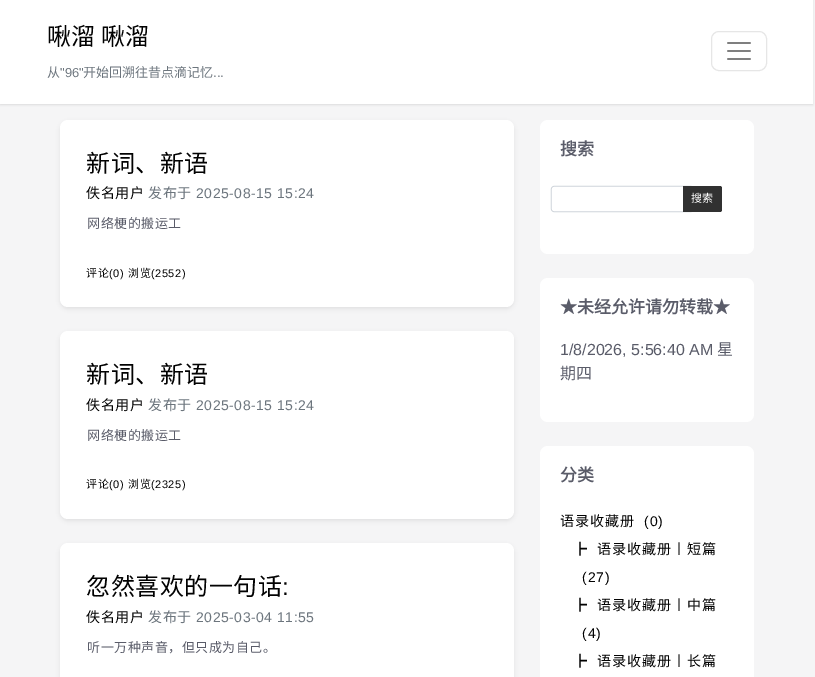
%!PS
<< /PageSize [815 677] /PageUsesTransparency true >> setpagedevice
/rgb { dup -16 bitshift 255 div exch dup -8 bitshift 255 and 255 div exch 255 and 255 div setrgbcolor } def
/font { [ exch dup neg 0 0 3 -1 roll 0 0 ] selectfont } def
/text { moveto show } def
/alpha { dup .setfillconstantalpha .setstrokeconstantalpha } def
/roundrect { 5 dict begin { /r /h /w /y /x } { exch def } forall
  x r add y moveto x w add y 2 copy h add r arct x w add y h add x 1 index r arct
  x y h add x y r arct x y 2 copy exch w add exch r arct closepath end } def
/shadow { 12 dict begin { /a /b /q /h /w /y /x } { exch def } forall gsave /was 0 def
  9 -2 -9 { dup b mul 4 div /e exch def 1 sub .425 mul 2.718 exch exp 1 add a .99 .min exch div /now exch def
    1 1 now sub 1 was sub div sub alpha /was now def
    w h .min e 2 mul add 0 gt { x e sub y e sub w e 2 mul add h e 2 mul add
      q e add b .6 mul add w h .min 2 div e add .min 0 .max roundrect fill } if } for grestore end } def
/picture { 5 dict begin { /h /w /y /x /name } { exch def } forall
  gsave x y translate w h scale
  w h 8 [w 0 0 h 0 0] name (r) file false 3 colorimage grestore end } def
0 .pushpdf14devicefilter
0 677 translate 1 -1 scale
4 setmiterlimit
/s1 { /NotoSansCJKSC-Regular 13 font 16#6C757D rgb } def
/s2 { /LiberationSans-Regular 13 font 16#6C757D rgb } def
/s3 { /NotoSansCJKSC-Bold 17 font 16#5A5C69 rgb } def
/s4 { /NotoSansCJKSC-Regular 11 font 16#FFFFFF rgb } def
/s5 { /LiberationSans-Regular 16 font 16#5A5C69 rgb } def
/s6 { /NotoSansCJKSC-Regular 16 font 16#5A5C69 rgb } def
16#F5F5F6 rgb
0 0 815 677 rectfill
16#000000 rgb
0 -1 813 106 0 1 0.1 shadow
16#FFFFFF rgb
0 0 813 104 rectfill
/NotoSansCJKSC-Regular 24 font
16#020202 rgb
47 45 moveto 1 0 32 (啾溜 啾溜) widthshow
s1
(从) 47 77 text
s2
("96") 60 77 text
s1
(开始回溯往昔点滴记忆) 83 77 text
s2
(...) 213 77 text
16#E6E6E6 rgb
711.5 31.5 55 39 7.5 roundrect stroke
(pic1.raw) 727 42 24 18 picture
16#000000 rgb
60 122 454 187 8 2 0.07 shadow
16#FFFFFF rgb
60 120 454 187 8 roundrect fill
/NotoSansCJKSC-Regular 24 font
16#020202 rgb
86 172 moveto 0.5 0 (新词、新语) ashow
/NotoSansCJKSC-Regular 14 font
86 198 moveto 0.5 0 (佚名用户) ashow
16#6C757D rgb
148 198 moveto 0.5 0 (发布于) ashow
/LiberationSans-Regular 14 font
196 198 moveto 0.5 0 (2025-08-15 15:24) ashow
/NotoSansCJKSC-Regular 13 font
16#5A5C69 rgb
87 228 moveto 0.5 0 (网络梗的搬运工) ashow
/NotoSansCJKSC-Regular 11 font
16#020202 rgb
86 277 moveto 0.5 0 (评论) ashow
/LiberationSans-Regular 11 font
109 277 moveto 0.5 0 (\(0\)) ashow
/NotoSansCJKSC-Regular 11 font
128 277 moveto 0.5 0 (浏览) ashow
/LiberationSans-Regular 11 font
151 277 moveto 0.5 0 (\(2552\)) ashow
16#000000 rgb
60 333 454 188 8 2 0.07 shadow
16#FFFFFF rgb
60 331 454 188 8 roundrect fill
/NotoSansCJKSC-Regular 24 font
16#020202 rgb
86 383 moveto 0.5 0 (新词、新语) ashow
/NotoSansCJKSC-Regular 14 font
86 410 moveto 0.5 0 (佚名用户) ashow
16#6C757D rgb
148 410 moveto 0.5 0 (发布于) ashow
/LiberationSans-Regular 14 font
196 410 moveto 0.5 0 (2025-08-15 15:24) ashow
/NotoSansCJKSC-Regular 13 font
16#5A5C69 rgb
87 440 moveto 0.5 0 (网络梗的搬运工) ashow
/NotoSansCJKSC-Regular 11 font
16#020202 rgb
86 488 moveto 0.5 0 (评论) ashow
/LiberationSans-Regular 11 font
109 488 moveto 0.5 0 (\(0\)) ashow
/NotoSansCJKSC-Regular 11 font
128 488 moveto 0.5 0 (浏览) ashow
/LiberationSans-Regular 11 font
151 488 moveto 0.5 0 (\(2325\)) ashow
16#000000 rgb
60 545 454 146 8 2 0.07 shadow
16#FFFFFF rgb
60 543 454 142 8 roundrect fill
/NotoSansCJKSC-Regular 24 font
16#020202 rgb
86 595 moveto 0.5 0 (忽然喜欢的一句话) ashow
/LiberationSans-Regular 24 font
282 595 moveto 0.5 0 (:) ashow
/NotoSansCJKSC-Regular 14 font
86 622 moveto 0.5 0 (佚名用户) ashow
16#6C757D rgb
148 622 moveto 0.5 0 (发布于) ashow
/LiberationSans-Regular 14 font
196 622 moveto 0.5 0 (2025-03-04 11:55) ashow
/NotoSansCJKSC-Regular 13 font
16#5A5C69 rgb
87 652 moveto 0.5 0 (听一万种声音，但只成为自己。) ashow
16#FFFFFF rgb
540 120 214 134 8 roundrect fill
s3
(搜索) 560 155 text
16#CED4DA rgb
0.7 setlinewidth
551.35 186.35 142.3 25.3 2.65 roundrect stroke
16#313131 rgb
683 186 moveto 720 186 lineto 721 186 722 187 722 188 curveto 722 210 lineto 722 211 721 212 720 212 curveto 683 212 lineto closepath fill
s4
(搜索) 691 202 text
540 278 214 144 8 roundrect fill
s3
(★未经允许请勿转载★) 560 313 text
s5
(1/8/2026, 5:56:40 AM) 560 355 text
s6
(星) 717 355 text
(期四) 560 379 text
16#FFFFFF rgb
540 446 214 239 8 roundrect fill
s3
(分类) 560 481 text
/NotoSansCJKSC-Regular 14 font
16#020202 rgb
560 526 moveto 1 0 (语录收藏册) ashow
/LiberationSans-Regular 14 font
644 526 moveto 1 0 (\(0\)) ashow
/NotoSansCJKSC-Regular 14 font
573 554 moveto 1 0 (┣) ashow
597 554 moveto 1 0 (语录收藏册丨短篇) ashow
/LiberationSans-Regular 14 font
582 582 moveto 1 0 (\(27\)) ashow
/NotoSansCJKSC-Regular 14 font
573 610 moveto 1 0 (┣) ashow
597 610 moveto 1 0 (语录收藏册丨中篇) ashow
/LiberationSans-Regular 14 font
582 638 moveto 1 0 (\(4\)) ashow
/NotoSansCJKSC-Regular 14 font
573 666 moveto 1 0 (┣) ashow
597 666 moveto 1 0 (语录收藏册丨长篇) ashow
.poppdf14devicefilter showpage
